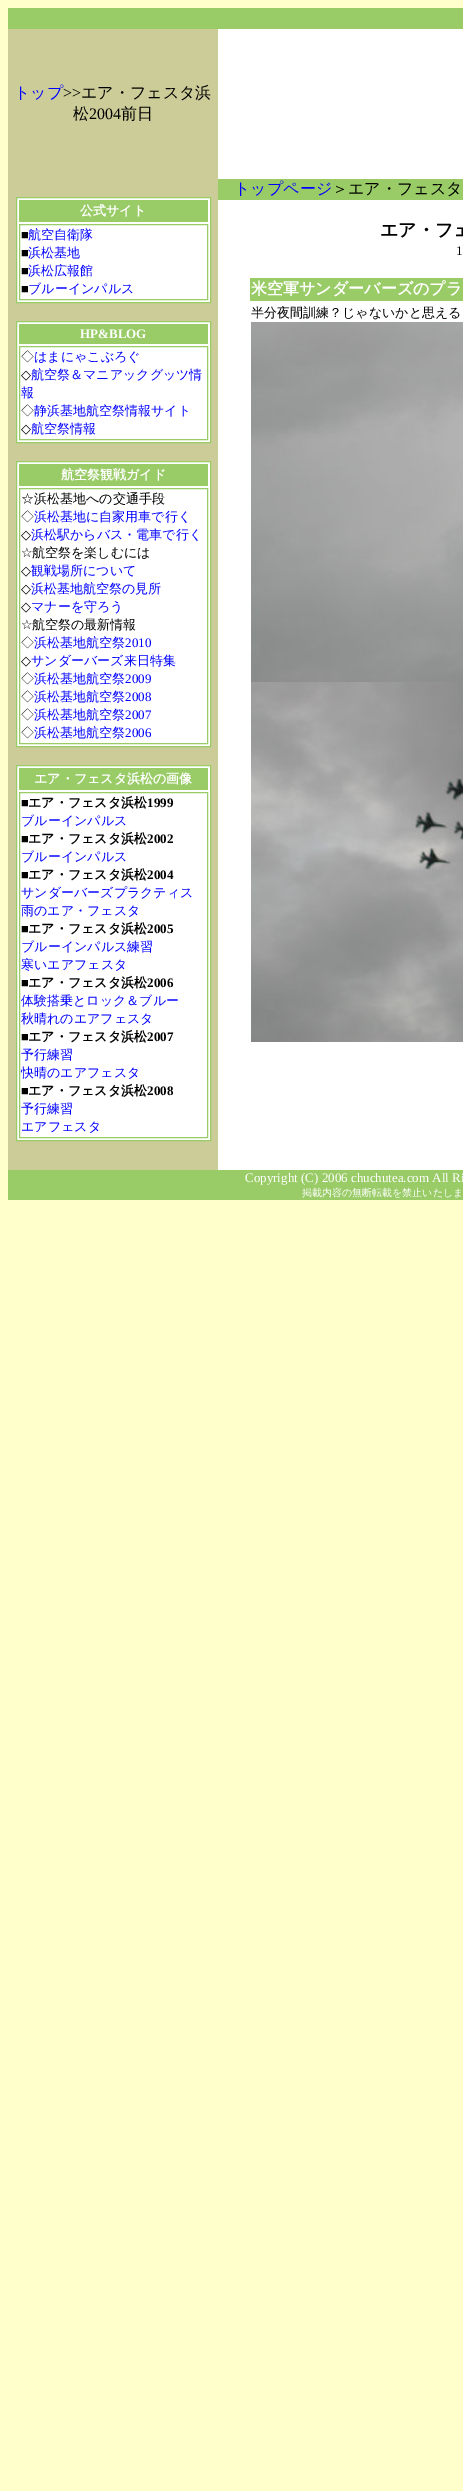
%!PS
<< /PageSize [463 2491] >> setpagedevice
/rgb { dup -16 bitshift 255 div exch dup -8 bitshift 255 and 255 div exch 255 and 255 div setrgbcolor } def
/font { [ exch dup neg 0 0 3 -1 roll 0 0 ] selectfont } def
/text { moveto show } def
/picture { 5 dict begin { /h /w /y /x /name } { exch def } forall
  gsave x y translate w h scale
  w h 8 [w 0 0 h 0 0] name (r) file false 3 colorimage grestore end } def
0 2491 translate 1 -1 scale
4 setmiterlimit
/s1 { /WenQuanYiZenHei-Medium 16 font 16#0000FF rgb } def
/s2 { /LiberationSerif-Regular 16 font 16#000000 rgb } def
/s3 { /WenQuanYiZenHei-Medium 16 font 16#000000 rgb } def
/s4 { /WenQuanYiZenHei-Bold 13 font 16#FFFFFF rgb } def
/s5 { /LiberationSerif-Regular 13 font 16#000000 rgb } def
/s6 { /WenQuanYiZenHei-Medium 13 font 16#0000FF rgb } def
/s7 { /LiberationSerif-Bold 13 font 16#FFFFFF rgb } def
/s8 { /WenQuanYiZenHei-Medium 13 font 16#000000 rgb } def
/s9 { /DejaVuSans-Regular 13 font 16#000000 rgb } def
/s10 { /LiberationSerif-Regular 13 font 16#0000FF rgb } def
/s11 { /WenQuanYiZenHei-Bold 13 font 16#000000 rgb } def
/s12 { /LiberationSerif-Bold 13 font 16#000000 rgb } def
/s13 { /WenQuanYiZenHei-Bold 18 font 16#000000 rgb } def
/s14 { /WenQuanYiZenHei-Bold 16 font 16#FFFFFF rgb } def
/s15 { /LiberationSerif-Regular 13 font 16#FFFFFF rgb } def
/s16 { /WenQuanYiZenHei-Medium 10 font 16#FFFFFF rgb } def
16#FFFFCC rgb
0 0 463 2491 rectfill
16#99CC66 rgb
8 8 455 21 rectfill
16#CCCC99 rgb
8 29 210 1141 rectfill
s1
(トップ) 14 98 text
s2
(>>) 63 98 text
s3
(エア・フェスタ浜) 81 98 text
(松) 73 119 text
s2
(2004) 89 119 text
s3
(前日) 121 119 text
16#FFFFFF rgb
218 29 245 150 rectfill
16#99CC66 rgb
218 179 245 21 rectfill
s1
(トップページ) 234 194 text
s3
(＞エア・フェスタ) 332 194 text
16#FFFFFF rgb
16.5 197.5 moveto 210.5 197.5 lineto 210.5 302.5 lineto 16.5 302.5 lineto closepath gsave fill grestore
16#99CC66 rgb
stroke
19 200 189 22 rectfill
s4
(公式サイト) 80 215 text
16#99CC66 rgb
19.5 224.5 188 75 rectstroke
s5
(■) 21 239 text
s6
(航空自衛隊) 28 239 text
s5
(■) 21 257 text
s6
(浜松基地) 28 257 text
s5
(■) 21 275 text
s6
(浜松広報館) 28 275 text
s5
(■) 21 293 text
s6
(ブルーインパルス) 28 293 text
16#FFFFFF rgb
16.5 321.5 moveto 210.5 321.5 lineto 210.5 442.5 lineto 16.5 442.5 lineto closepath gsave fill grestore
16#99CC66 rgb
stroke
19 324 189 20 rectfill
s7
(HP&BLOG) 80 338 text
16#99CC66 rgb
19.5 346.5 188 93 rectstroke
s8
(◇) 21 361 text
s6
(はまにゃこぶろぐ) 34 361 text
s9
(◇) 21 379 text
s6
(航空祭＆マニアックグッツ情) 31 379 text
(報) 21 397 text
s8
(◇) 21 415 text
s6
(静浜基地航空祭情報サイト) 34 415 text
s9
(◇) 21 433 text
s6
(航空祭情報) 31 433 text
16#FFFFFF rgb
16.5 461.5 moveto 210.5 461.5 lineto 210.5 746.5 lineto 16.5 746.5 lineto closepath gsave fill grestore
16#99CC66 rgb
stroke
19 464 189 22 rectfill
s4
(航空祭観戦ガイド) 61 479 text
16#99CC66 rgb
19.5 488.5 188 255 rectstroke
s8
(☆浜松基地への交通手段) 21 503 text
(◇) 21 521 text
s6
(浜松基地に自家用車で行く) 34 521 text
s9
(◇) 21 539 text
s6
(浜松駅からバス・電車で行く) 31 539 text
s9
(☆) 21 557 text
s8
(航空祭を楽しむには) 32 557 text
s9
(◇) 21 575 text
s6
(観戦場所について) 31 575 text
s9
(◇) 21 593 text
s6
(浜松基地航空祭の見所) 31 593 text
s9
(◇) 21 611 text
s6
(マナーを守ろう) 31 611 text
s9
(☆) 21 629 text
s8
(航空祭の最新情報) 32 629 text
(◇) 21 647 text
s6
(浜松基地航空祭) 34 647 text
s10
(2010) 125 647 text
s9
(◇) 21 665 text
s6
(サンダーバーズ来日特集) 31 665 text
s8
(◇) 21 683 text
s6
(浜松基地航空祭) 34 683 text
s10
(2009) 125 683 text
s8
(◇) 21 701 text
s6
(浜松基地航空祭) 34 701 text
s10
(2008) 125 701 text
s8
(◇) 21 719 text
s6
(浜松基地航空祭) 34 719 text
s10
(2007) 125 719 text
s8
(◇) 21 737 text
s6
(浜松基地航空祭) 34 737 text
s10
(2006) 125 737 text
16#FFFFFF rgb
16.5 765.5 moveto 210.5 765.5 lineto 210.5 1140.5 lineto 16.5 1140.5 lineto closepath gsave fill grestore
16#99CC66 rgb
stroke
19 768 189 22 rectfill
s4
(エア・フェスタ浜松の画像) 34 783 text
16#99CC66 rgb
19.5 792.5 188 345 rectstroke
s5
(■) 21 807 text
s11
(エア・フェスタ浜松) 28 807 text
s12
(1999) 147 807 text
s6
(ブルーインパルス) 21 825 text
s5
(■) 21 843 text
s11
(エア・フェスタ浜松) 28 843 text
s12
(2002) 147 843 text
s6
(ブルーインパルス) 21 861 text
s5
(■) 21 879 text
s11
(エア・フェスタ浜松) 28 879 text
s12
(2004) 147 879 text
s6
(サンダーバーズプラクティス) 21 897 text
(雨のエア・フェスタ) 21 915 text
s5
(■) 21 933 text
s11
(エア・フェスタ浜松) 28 933 text
s12
(2005) 147 933 text
s6
(ブルーインパルス練習) 21 951 text
(寒いエアフェスタ) 21 969 text
s5
(■) 21 987 text
s11
(エア・フェスタ浜松) 28 987 text
s12
(2006) 147 987 text
s6
(体験搭乗とロック＆ブルー) 21 1005 text
(秋晴れのエアフェスタ) 21 1023 text
s5
(■) 21 1041 text
s11
(エア・フェスタ浜松) 28 1041 text
s12
(2007) 147 1041 text
s6
(予行練習) 21 1059 text
(快晴のエアフェスタ) 21 1077 text
s5
(■) 21 1095 text
s11
(エア・フェスタ浜松) 28 1095 text
s12
(2008) 147 1095 text
s6
(予行練習) 21 1113 text
(エアフェスタ) 21 1131 text
16#FFFFFF rgb
218 200 245 970 rectfill
s13
(エア・フェ) 380 236 text
s5
(1) 456 255 text
16#99CC66 rgb
250 278 213 23 rectfill
s14
(米空軍サンダーバーズのプラ) 251 294 text
s8
(半分夜間訓練？じゃないかと思える) 251 317 text
(pic1.raw) 251 322 212 360 picture
(pic2.raw) 251 682 212 360 picture
16#99CC66 rgb
8 1170 455 30 rectfill
s15
(Copyright \(C\) 2006 chuchutea.com All Ri) 245 1182 text
s16
(掲載内容の無断転載を禁止いたしま) 302 1196 text
showpage
